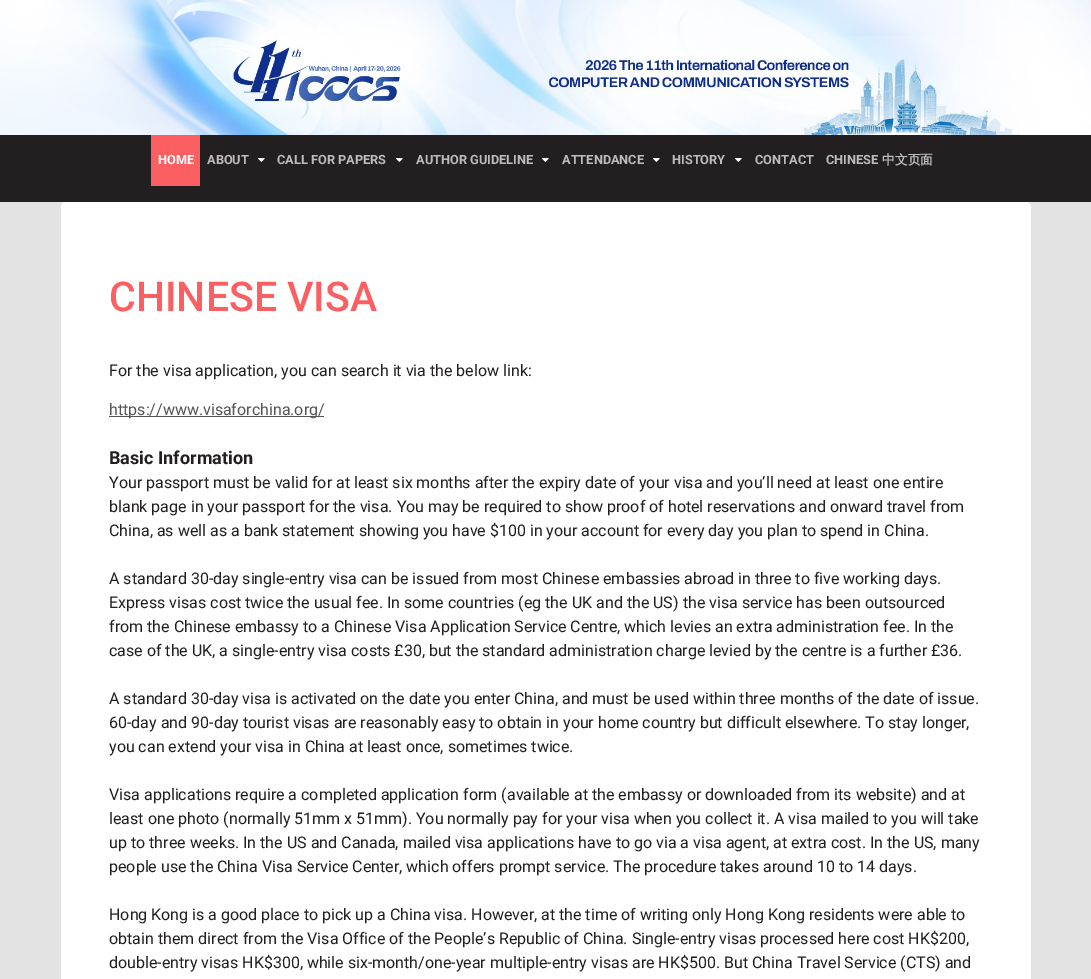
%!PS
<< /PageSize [1091 979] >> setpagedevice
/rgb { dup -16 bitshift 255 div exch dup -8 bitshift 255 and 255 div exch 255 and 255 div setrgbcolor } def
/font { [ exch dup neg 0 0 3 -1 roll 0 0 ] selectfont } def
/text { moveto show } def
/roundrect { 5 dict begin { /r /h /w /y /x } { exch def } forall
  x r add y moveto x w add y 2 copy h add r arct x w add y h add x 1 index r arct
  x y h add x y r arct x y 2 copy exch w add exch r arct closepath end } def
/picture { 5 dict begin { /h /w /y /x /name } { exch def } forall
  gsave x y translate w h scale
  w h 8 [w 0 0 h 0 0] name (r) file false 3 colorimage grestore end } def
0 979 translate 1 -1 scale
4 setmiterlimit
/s1 { /Roboto-Bold 12.75 font 16#FFFFFF rgb } def
/s2 { /Roboto-Bold 12.75 font 16#BDBCBC rgb } def
/s3 { /WenQuanYiZenHei-Bold 12.75 font 16#BDBCBC rgb } def
/s4 { /Roboto-Medium 41 font 16#FB5F62 rgb } def
/s5 { /Roboto-Regular 16 font 16#231F20 rgb } def
/s6 { /Roboto-Regular 16 font 16#555555 rgb } def
/s7 { /Roboto-Bold 18 font 16#231F20 rgb } def
16#E3E3E3 rgb
0 0 1091 979 rectfill
(pic1.raw) 0 0 1091 135 picture
16#231F20 rgb
0 135 1091 67 rectfill
16#FB5F62 rgb
151 135 49 51 rectfill
s1
(HOME) 158 164 text
s2
(ABOUT) 207 164 text
(pic2.raw) 258 158 7 4 picture
(CALL FOR PAPERS) 277 164 text
(pic2.raw) 396 158 7 4 picture
(AUTHOR GUIDELINE) 416 164 text
(pic2.raw) 542 158 7 4 picture
(ATTENDANCE) 562 164 text
(pic2.raw) 653 158 7 4 picture
(HISTORY) 672 164 text
(pic2.raw) 735 158 7 4 picture
(CONTACT) 755 164 text
(CHINESE) 826 164 text
s3
(中文页面) 882 164 text
16#FFFFFF rgb
61 202 970 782 5 roundrect fill
s4
(CHINESE VISA) 109 311 text
s5
(For the visa application, you can search it via the below link:) 109 376 text
16#555555 rgb
109 416 215 1 rectfill
(https://www.visaforchina.org/) 109 415 text
s7
(Basic Information) 109 464 text
s5
(Your passport must be valid for at least six months after the expiry date of your visa and you’ll need at least one entire) 109 488 text
(blank page in your passport for the visa. You may be required to show proof of hotel reservations and onward travel from) 109 512 text
(China, as well as a bank statement showing you have $100 in your account for every day you plan to spend in China.) 109 536 text
(A standard 30-day single-entry visa can be issued from most Chinese embassies abroad in three to five working days.) 109 584 text
(Express visas cost twice the usual fee. In some countries \(eg the UK and the US\) the visa service has been outsourced) 109 608 text
(from the Chinese embassy to a Chinese Visa Application Service Centre, which levies an extra administration fee. In the) 109 632 text
(case of the UK, a single-entry visa costs £30, but the standard administration charge levied by the centre is a further £36.) 109 656 text
(A standard 30-day visa is activated on the date you enter China, and must be used within three months of the date of issue.) 109 704 text
(60-day and 90-day tourist visas are reasonably easy to obtain in your home country but difficult elsewhere. To stay longer,) 109 728 text
(you can extend your visa in China at least once, sometimes twice.) 109 752 text
(Visa applications require a completed application form \(available at the embassy or downloaded from its website\) and at) 109 800 text
(least one photo \(normally 51mm x 51mm\). You normally pay for your visa when you collect it. A visa mailed to you will take) 109 824 text
(up to three weeks. In the US and Canada, mailed visa applications have to go via a visa agent, at extra cost. In the US, many) 109 848 text
(people use the China Visa Service Center, which offers prompt service. The procedure takes around 10 to 14 days.) 109 872 text
(Hong Kong is a good place to pick up a China visa. However, at the time of writing only Hong Kong residents were able to) 109 920 text
(obtain them direct from the Visa Office of the People’s Republic of China. Single-entry visas processed here cost HK$200,) 109 944 text
(double-entry visas HK$300, while six-month/one-year multiple-entry visas are HK$500. But China Travel Service \(CTS\) and) 109 968 text
showpage
